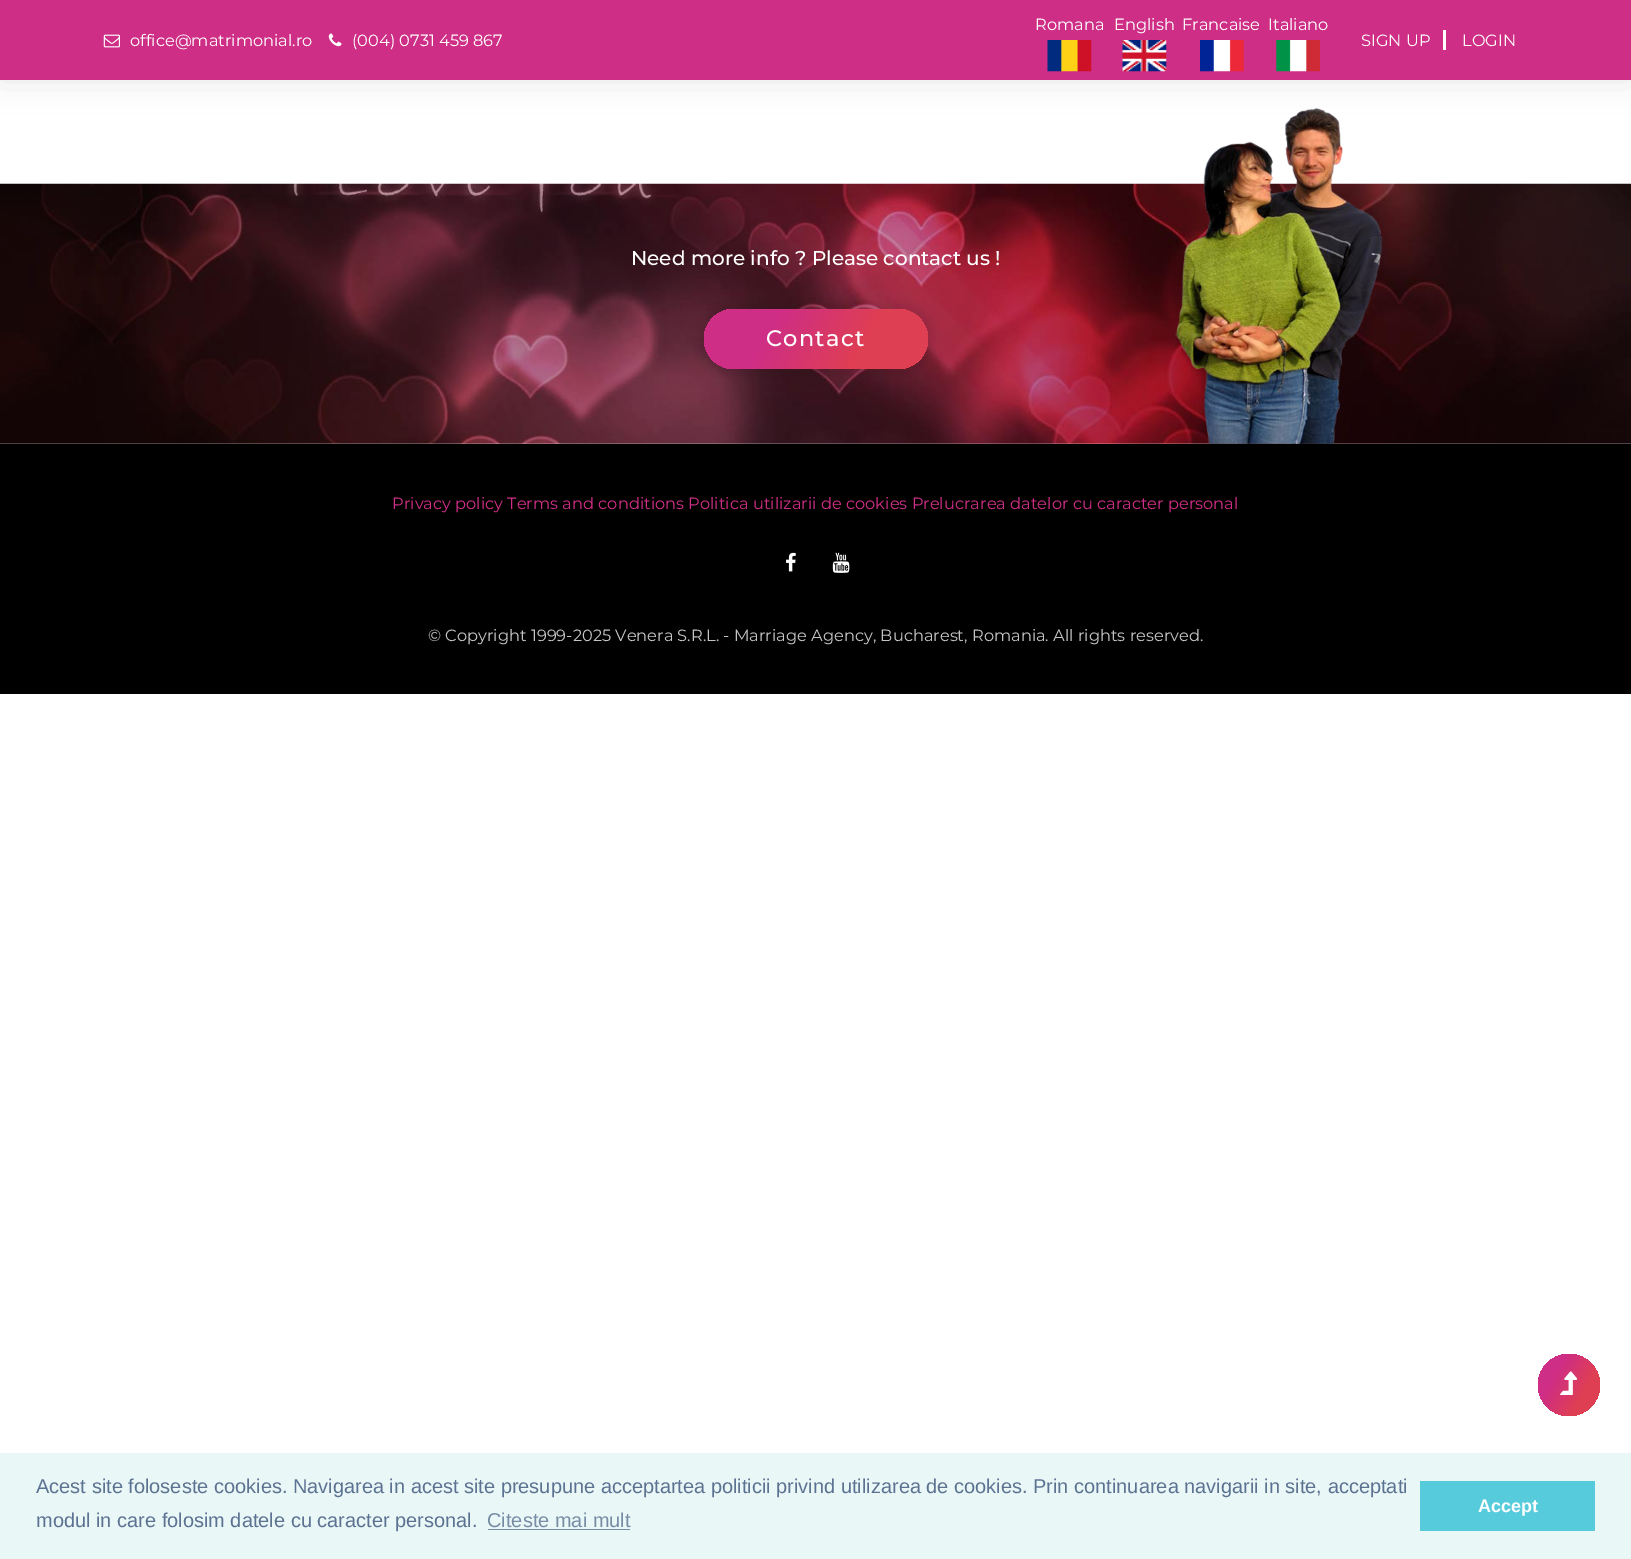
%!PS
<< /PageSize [1631 1559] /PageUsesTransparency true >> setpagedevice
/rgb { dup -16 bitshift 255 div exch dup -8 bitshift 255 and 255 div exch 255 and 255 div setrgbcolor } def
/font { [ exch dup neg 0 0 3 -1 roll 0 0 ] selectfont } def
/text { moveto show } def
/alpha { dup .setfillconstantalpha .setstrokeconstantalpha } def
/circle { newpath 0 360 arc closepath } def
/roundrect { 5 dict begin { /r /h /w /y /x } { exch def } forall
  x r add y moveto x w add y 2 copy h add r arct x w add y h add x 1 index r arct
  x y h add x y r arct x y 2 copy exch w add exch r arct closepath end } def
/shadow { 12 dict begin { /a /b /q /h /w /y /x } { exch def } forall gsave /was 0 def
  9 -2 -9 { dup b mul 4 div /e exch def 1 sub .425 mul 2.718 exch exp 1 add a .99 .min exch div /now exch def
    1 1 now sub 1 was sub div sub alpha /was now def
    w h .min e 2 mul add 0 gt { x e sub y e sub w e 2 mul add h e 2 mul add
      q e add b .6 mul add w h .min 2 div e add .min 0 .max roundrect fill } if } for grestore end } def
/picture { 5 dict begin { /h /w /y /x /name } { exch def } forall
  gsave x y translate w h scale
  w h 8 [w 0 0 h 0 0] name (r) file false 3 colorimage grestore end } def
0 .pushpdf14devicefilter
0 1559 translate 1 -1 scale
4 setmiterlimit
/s1 { /Montserrat-Regular 16.25 font 16#FFFFFF rgb } def
/s2 { /Montserrat-Medium 20 font 16#FFFFFF rgb } def
/s3 { /Montserrat-Regular 16.25 font 16#CE2E85 rgb } def
/s4 { /Montserrat-Regular 16.25 font 16#C5C5C5 rgb } def
/s5 { /LiberationSans-Regular 20 font 16#5C7291 rgb } def
/s6 { /LiberationSans-Regular 20 font 16#788DA5 rgb } def
/s7 { /LiberationSans-Bold 18 font 16#FFFFFF rgb } def
16#FFFFFF rgb
0 0 1631 1559 rectfill
(pic7.raw) 0 183 1631 261 picture
(pic8.raw) 1175 107 208 337 picture
16#000000 rgb
0 0 1631 80 0 15.5 0.1 shadow
16#CE2E85 rgb
0 0 1631 80 rectfill
(pic1.raw) 103 34 17 14 picture
s1
(office@matrimonial.ro) 130 46 text
(pic2.raw) 328 33 14 14 picture
(\(004\) 0731 459 867) 352 46 text
(Romana) 1035 30 text
(pic3.raw) 1047 40 45 32 picture
(English) 1114 30 text
(pic4.raw) 1122 40 45 32 picture
(Francaise) 1182 30 text
(pic5.raw) 1200 40 44 32 picture
(Italiano) 1268 30 text
(pic6.raw) 1276 40 44 32 picture
(SIGN UP) 1361 46 text
1443 30 3 20 rectfill
(LOGIN) 1462 46 text
s2
(Need more info ? Please contact us !) 631 265 text
16#000000 rgb
698 303 236 72 36 5 0.1 shadow
gsave 704 309 224 60 30 roundrect clip newpath
<< /ShadingType 2 /ColorSpace /DeviceRGB /Coords [719 283 913 395] /Extend [true true] /Function << /FunctionType 3 /Domain [0 1] /Functions [<< /FunctionType 2 /Domain [0 1] /C0 [0.808 0.18 0.522] /C1 [0.808 0.18 0.522] /N 1 >> << /FunctionType 2 /Domain [0 1] /C0 [0.808 0.18 0.522] /C1 [0.875 0.247 0.322] /N 1 >> << /FunctionType 2 /Domain [0 1] /C0 [0.875 0.247 0.322] /C1 [0.875 0.247 0.322] /N 1 >>] /Bounds [0.3 0.7] /Encode [0 1 0 1 0 1] >> >> shfill grestore
/Montserrat-Medium 22.5 font
16#FFFFFF rgb
766 346 moveto 1.25 0 (Contact) ashow
16#000000 rgb
0 444 1631 250 rectfill
s3
(Privacy policy Terms and conditions Politica utilizarii de cookies Prelucrarea datelor cu caracter personal) 392 509 text
(pic9.raw) 786 552 10 20 picture
(pic10.raw) 832 552 18 21 picture
s4
(© Copyright 1999-2025 Venera S.R.L. - Marriage Agency, Bucharest, Romania. All rights reserved.) 428 641 text
gsave 1569 1385 31 circle clip newpath
<< /ShadingType 2 /ColorSpace /DeviceRGB /Coords [1532 1364 1606 1406] /Extend [true true] /Function << /FunctionType 3 /Domain [0 1] /Functions [<< /FunctionType 2 /Domain [0 1] /C0 [0.808 0.18 0.522] /C1 [0.808 0.18 0.522] /N 1 >> << /FunctionType 2 /Domain [0 1] /C0 [0.808 0.18 0.522] /C1 [0.875 0.247 0.322] /N 1 >> << /FunctionType 2 /Domain [0 1] /C0 [0.875 0.247 0.322] /C1 [0.875 0.247 0.322] /N 1 >>] /Bounds [0.3 0.7] /Encode [0 1 0 1 0 1] >> >> shfill grestore
(pic11.raw) 1560 1371 18 24 picture
16#EAF7F7 rgb
0 1453 1631 106 rectfill
s5
(Acest site foloseste cookies. Navigarea in acest site presupune acceptartea politicii privind utilizarea de cookies. Prin continuarea navigarii in site, acceptati) 36 1493 text
(modul in care folosim datele cu caracter personal.) 36 1527 text
s6
(Citeste mai mult) 487 1527 text
488 1529 142 1 rectfill
16#56CBDB rgb
1420 1481 175 50 rectfill
s7
(Accept) 1478 1512 text
.poppdf14devicefilter showpage
